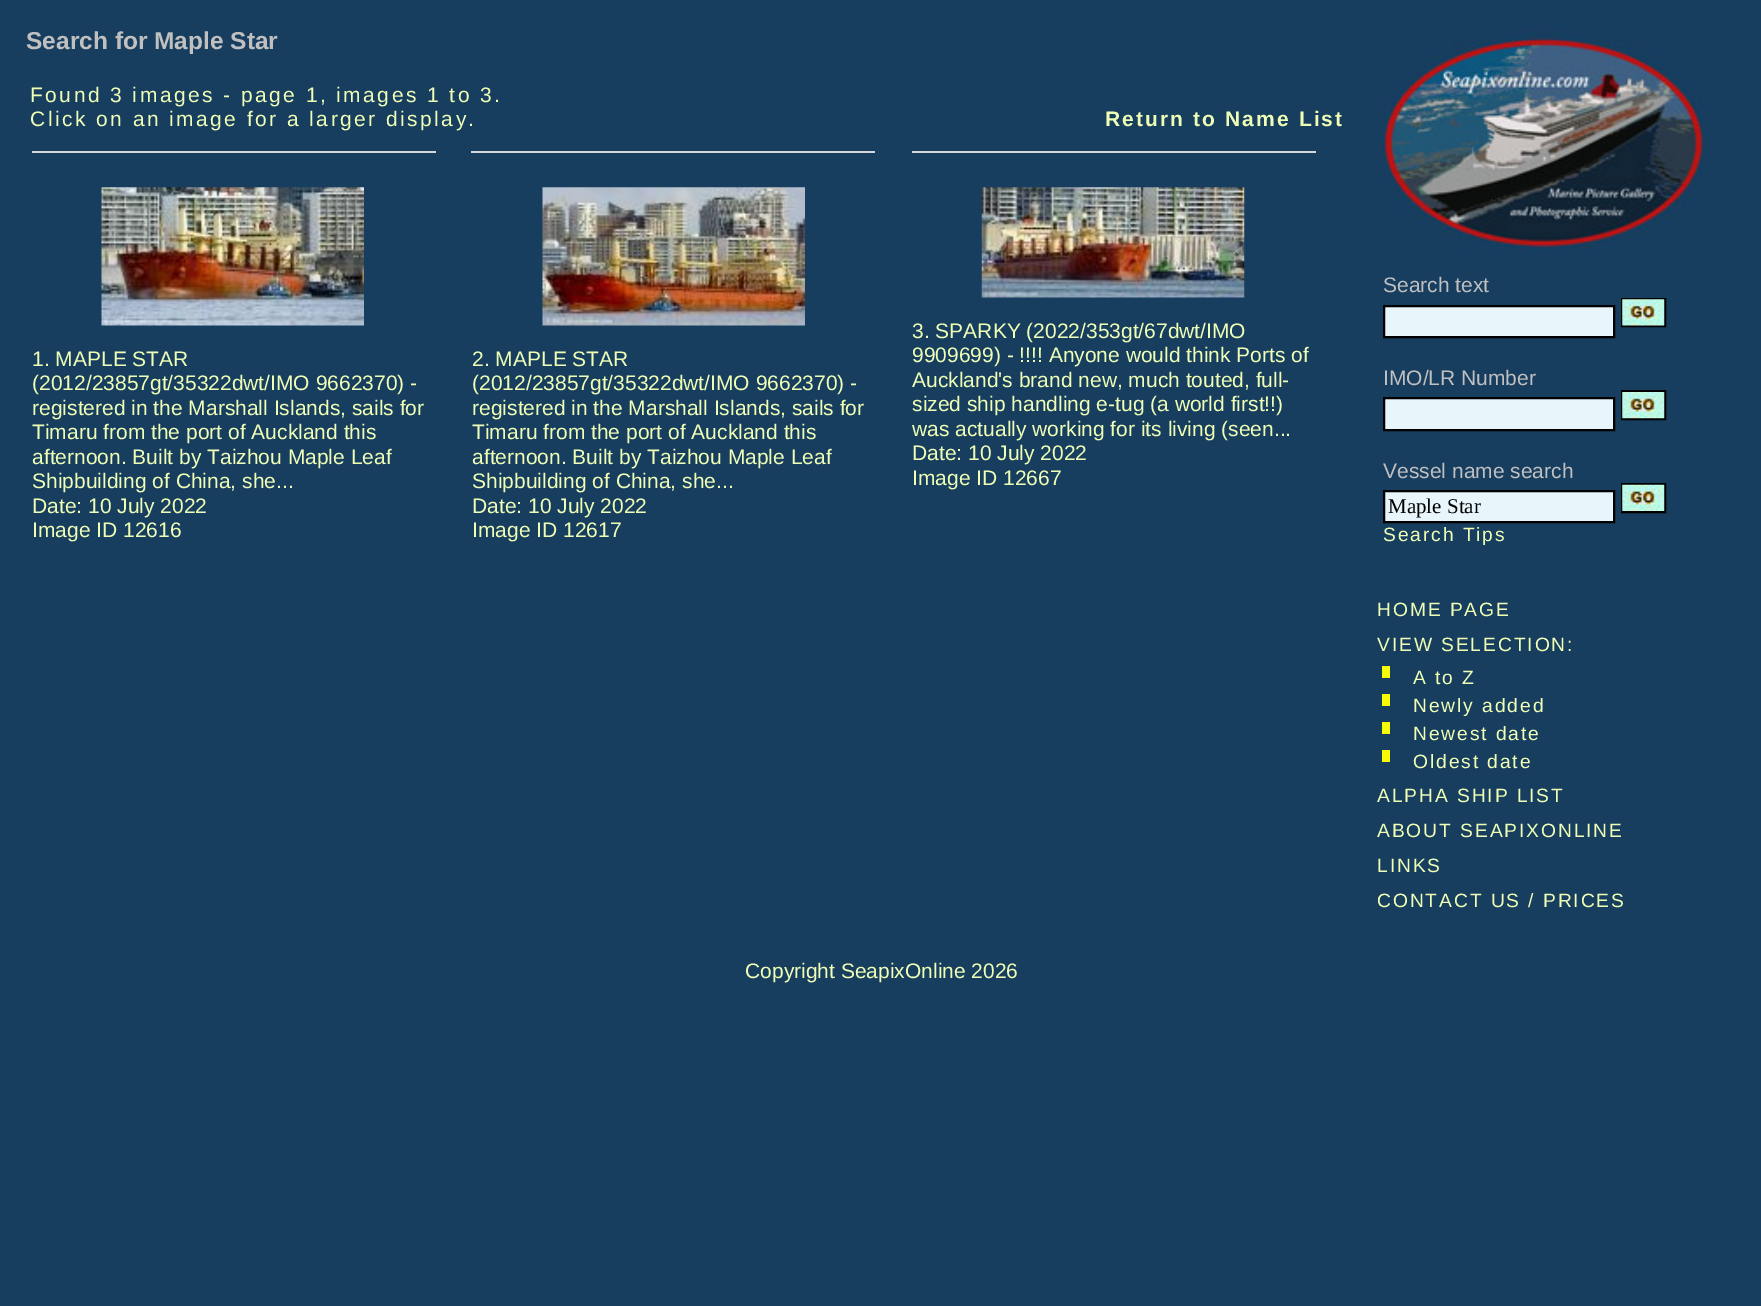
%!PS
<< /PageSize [1761 1306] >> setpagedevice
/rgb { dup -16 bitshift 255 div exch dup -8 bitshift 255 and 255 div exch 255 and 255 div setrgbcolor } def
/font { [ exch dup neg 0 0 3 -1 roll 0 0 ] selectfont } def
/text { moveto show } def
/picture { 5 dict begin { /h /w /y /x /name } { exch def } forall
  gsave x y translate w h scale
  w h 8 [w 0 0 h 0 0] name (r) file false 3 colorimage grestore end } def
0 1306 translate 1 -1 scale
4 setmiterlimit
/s1 { /LiberationSans-Bold 24.5 font 16#C0C0C0 rgb } def
/s2 { /LiberationSans-Regular 21 font 16#EFFFB6 rgb } def
/s3 { /LiberationSans-Regular 21 font 16#C0C0C0 rgb } def
/s4 { /LiberationSerif-Regular 21 font 16#000000 rgb } def
16#173D5F rgb
0 0 1761 1306 rectfill
s1
(Search for Maple Star) 26 49 text
/LiberationSans-Regular 21 font
16#EFFFB6 rgb
30 102 moveto 2.45 0 (Found 3 images - page 1, images 1 to 3.) ashow
30 126 moveto 2.45 0 (Click on an image for a larger display.) ashow
/LiberationSans-Bold 21 font
1105 126 moveto 2.1 0 (Return to Name List) ashow
16#D1D7DC rgb
32 151 404 2 rectfill
(pic1.raw) 101 187 263 139 picture
s2
(1. MAPLE STAR) 32 366 text
(\(2012/23857gt/35322dwt/IMO 9662370\) -) 32 390 text
(registered in the Marshall Islands, sails for) 32 415 text
(Timaru from the port of Auckland this) 32 439 text
(afternoon. Built by Taizhou Maple Leaf) 32 464 text
(Shipbuilding of China, she...) 32 488 text
(Date: 10 July 2022) 32 513 text
(Image ID 12616) 32 537 text
16#D1D7DC rgb
471 151 404 2 rectfill
(pic2.raw) 542 187 263 139 picture
s2
(2. MAPLE STAR) 472 366 text
(\(2012/23857gt/35322dwt/IMO 9662370\) -) 472 390 text
(registered in the Marshall Islands, sails for) 472 415 text
(Timaru from the port of Auckland this) 472 439 text
(afternoon. Built by Taizhou Maple Leaf) 472 464 text
(Shipbuilding of China, she...) 472 488 text
(Date: 10 July 2022) 472 513 text
(Image ID 12617) 472 537 text
16#D1D7DC rgb
912 151 404 2 rectfill
(pic3.raw) 981 187 264 111 picture
s2
(3. SPARKY \(2022/353gt/67dwt/IMO) 912 338 text
(9909699\) - !!!! Anyone would think Ports of) 912 362 text
(Auckland's brand new, much touted, full-) 912 387 text
(sized ship handling e-tug \(a world first!!\)) 912 411 text
(was actually working for its living \(seen...) 912 436 text
(Date: 10 July 2022) 912 460 text
(Image ID 12667) 912 485 text
(pic4.raw) 1382 26 323 225 picture
s3
(Search text) 1383 292 text
16#E8F5FB rgb
1384 306 moveto 1614 306 lineto 1614 337 lineto 1384 337 lineto closepath gsave fill grestore
16#000000 rgb
2 setlinewidth
stroke
1622 299 43 27 rectstroke
(pic5.raw) 1622 299 43 27 picture
s3
(IMO/LR Number) 1383 385 text
16#E8F5FB rgb
1384 398 moveto 1614 398 lineto 1614 430 lineto 1384 430 lineto closepath gsave fill grestore
16#000000 rgb
stroke
1622 391 43 28 rectstroke
(pic6.raw) 1622 392 43 27 picture
s3
(Vessel name search) 1383 478 text
16#E8F5FB rgb
1384 491 moveto 1614 491 lineto 1614 522 lineto 1384 522 lineto closepath gsave fill grestore
16#000000 rgb
stroke
s4
(Maple Star) 1388 513 text
1622 484 43 28 rectstroke
(pic7.raw) 1622 484 43 27 picture
/LiberationSans-Regular 19.25 font
16#EFFFB6 rgb
1383 541 moveto 1.9 0 (Search Tips) ashow
1377 616 moveto 1.9 0 (HOME PAGE) ashow
1377 651 moveto 1.9 0 (VIEW SELECTION:) ashow
16#F9FA06 rgb
1382 666 8 12 rectfill
16#EFFFB6 rgb
1413 684 moveto 1.9 0 (A to Z) ashow
16#F9FA06 rgb
1382 694 8 12 rectfill
16#EFFFB6 rgb
1413 712 moveto 1.9 0 (Newly added) ashow
16#F9FA06 rgb
1382 722 8 12 rectfill
16#EFFFB6 rgb
1413 740 moveto 1.9 0 (Newest date) ashow
16#F9FA06 rgb
1382 750 8 12 rectfill
16#EFFFB6 rgb
1413 768 moveto 1.9 0 (Oldest date) ashow
1377 802 moveto 1.9 0 (ALPHA SHIP LIST) ashow
1377 837 moveto 1.9 0 (ABOUT SEAPIXONLINE) ashow
1377 872 moveto 1.9 0 (LINKS) ashow
1377 907 moveto 1.9 0 (CONTACT US / PRICES) ashow
s2
(Copyright SeapixOnline 2026) 745 978 text
showpage
